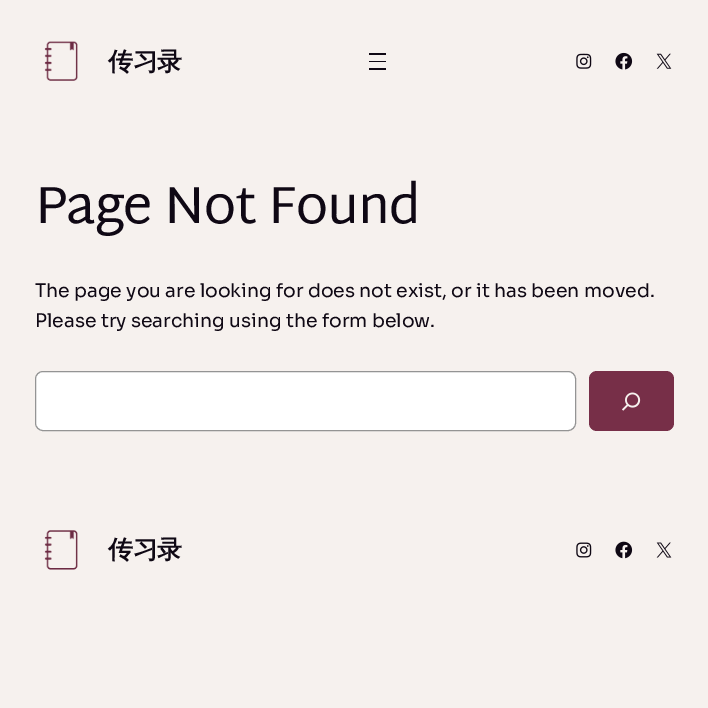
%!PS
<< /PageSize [708 708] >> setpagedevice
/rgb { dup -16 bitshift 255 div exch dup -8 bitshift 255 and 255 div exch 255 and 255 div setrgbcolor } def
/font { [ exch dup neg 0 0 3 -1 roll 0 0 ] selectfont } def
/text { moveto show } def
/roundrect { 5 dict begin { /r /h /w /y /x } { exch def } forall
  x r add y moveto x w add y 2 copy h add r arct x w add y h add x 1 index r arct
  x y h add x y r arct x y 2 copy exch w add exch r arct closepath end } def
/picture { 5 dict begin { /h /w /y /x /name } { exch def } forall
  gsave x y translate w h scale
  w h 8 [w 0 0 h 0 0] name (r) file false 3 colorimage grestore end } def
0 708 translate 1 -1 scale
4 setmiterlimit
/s1 { /Sora-Regular 18.8 font 16#0F0814 rgb } def
16#F6F1EE rgb
0 0 708 708 rectfill
(pic1.raw) 44 41 34 40 picture
/WenQuanYiZenHei-Bold 25 font
16#0F0814 rgb
108 70 moveto -0.5 0 (传习录) ashow
369 53 17 2 rectfill
369 61 17 1 rectfill
369 68 17 2 rectfill
(pic2.raw) 576 53 16 16 picture
(pic3.raw) 615 52 18 18 picture
(pic4.raw) 656 53 16 16 picture
/MartelSans-Regular 52.75 font
35 223 moveto -1 0 (Page Not Found) ashow
s1
(The page you are looking for does not exist, or it has been moved.) 35 297 text
(Please try searching using the form below.) 35 327 text
16#FFFFFF rgb
35.5 371.5 540 59 7.5 roundrect gsave fill grestore
16#949494 rgb
stroke
16#772F48 rgb
589 371 85 60 8 roundrect fill
(pic5.raw) 622 392 19 19 picture
(pic6.raw) 44 530 34 40 picture
/WenQuanYiZenHei-Bold 25 font
16#0F0814 rgb
108 558 moveto -0.5 0 (传习录) ashow
(pic7.raw) 576 542 16 16 picture
(pic8.raw) 615 541 18 18 picture
(pic9.raw) 656 542 16 16 picture
showpage
